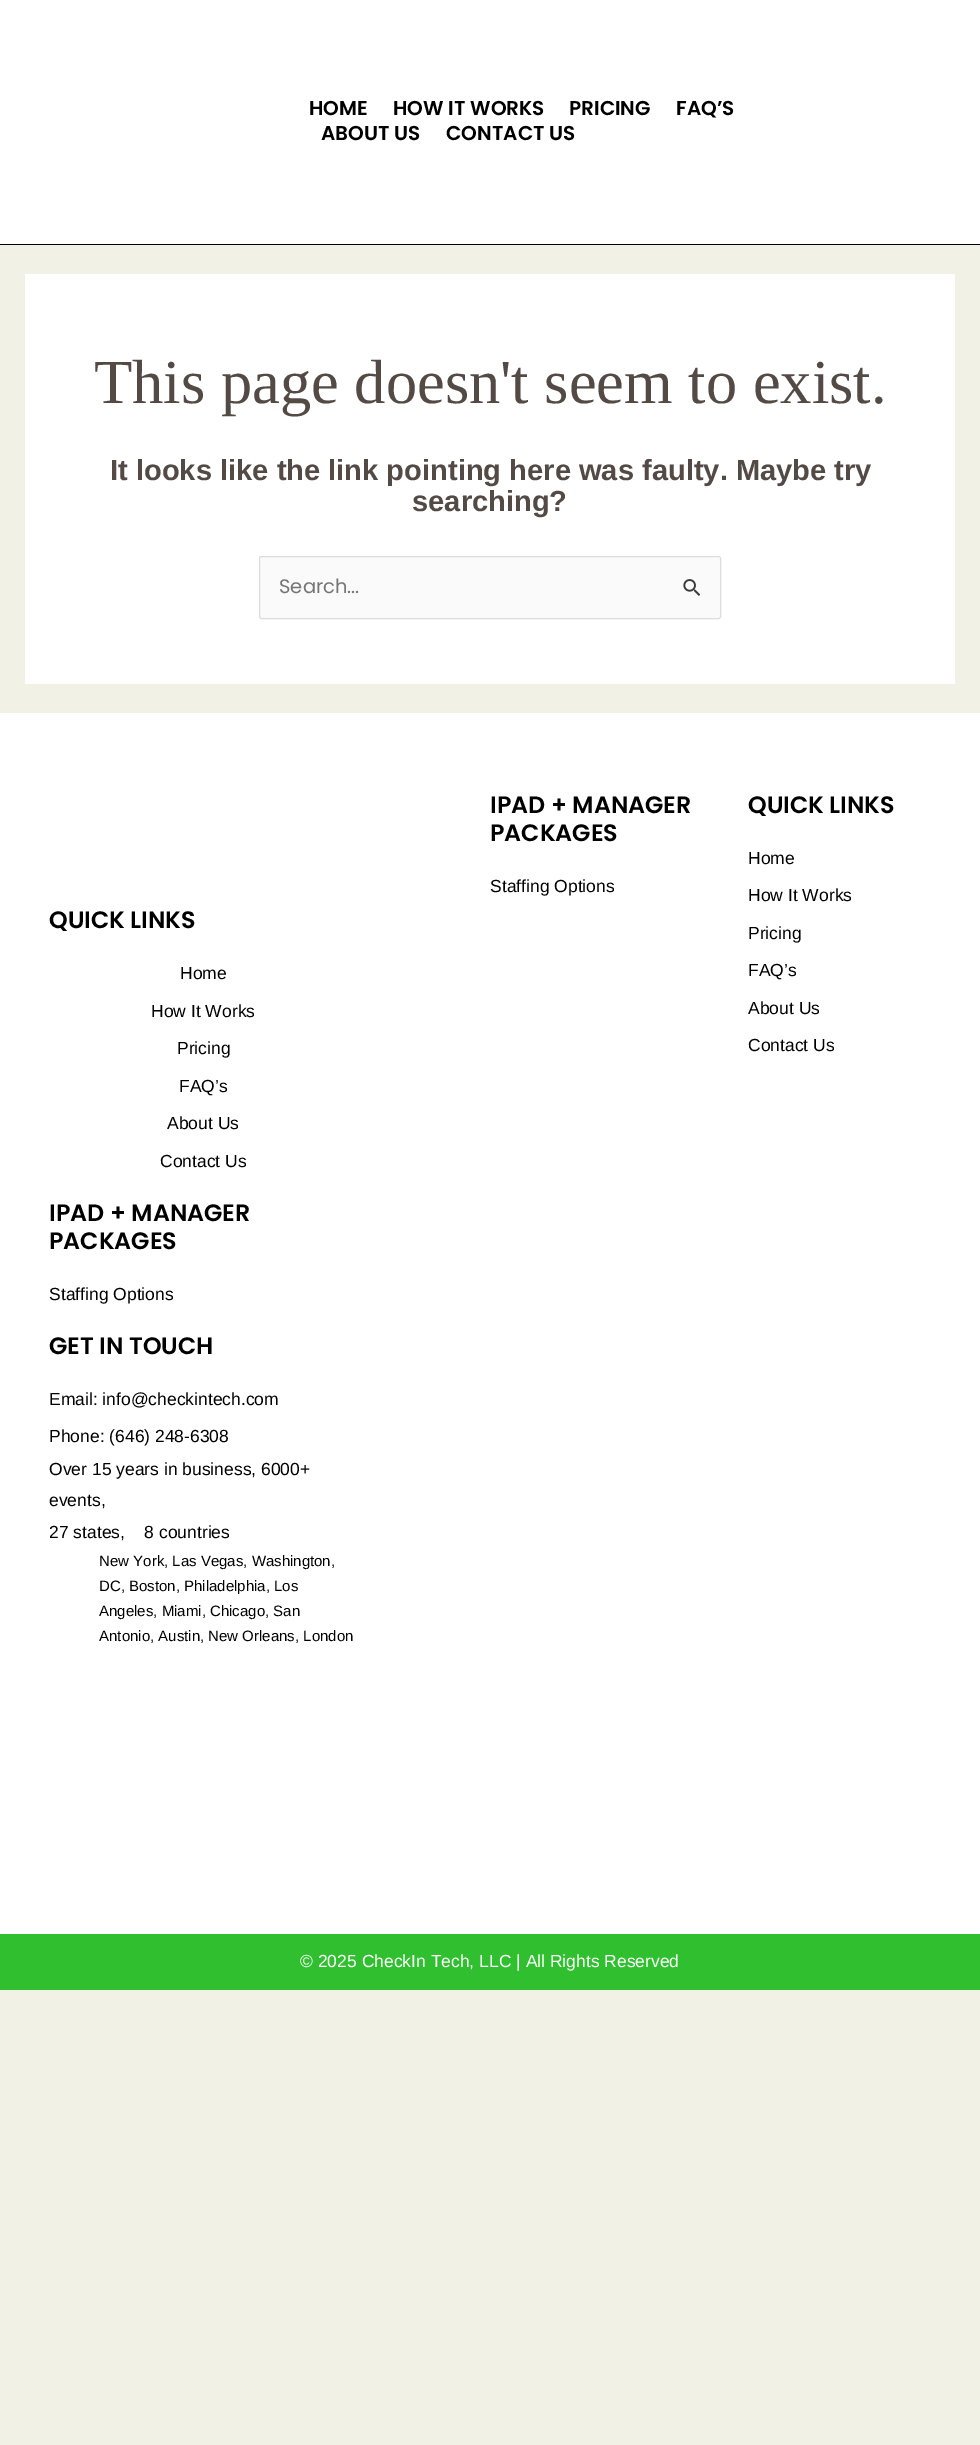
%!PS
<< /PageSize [980 2445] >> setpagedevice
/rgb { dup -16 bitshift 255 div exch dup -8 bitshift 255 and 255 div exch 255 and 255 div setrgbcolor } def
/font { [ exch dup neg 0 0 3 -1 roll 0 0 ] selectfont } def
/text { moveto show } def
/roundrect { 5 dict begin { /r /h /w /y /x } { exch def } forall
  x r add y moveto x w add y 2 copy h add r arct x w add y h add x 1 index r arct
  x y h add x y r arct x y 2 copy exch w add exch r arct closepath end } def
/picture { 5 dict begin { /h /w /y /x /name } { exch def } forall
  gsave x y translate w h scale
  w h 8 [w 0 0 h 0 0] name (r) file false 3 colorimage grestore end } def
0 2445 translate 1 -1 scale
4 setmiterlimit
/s1 { /Poppins-SemiBold 20 font 16#000000 rgb } def
/s2 { /LiberationSerif-Regular 62.5 font 16#534A45 rgb } def
/s3 { /LiberationSans-Bold 29.1 font 16#534A45 rgb } def
/s4 { /Poppins-Regular 19.5 font 16#757575 rgb } def
/s5 { /Poppins-SemiBold 23.75 font 16#000000 rgb } def
/s6 { /LiberationSans-Regular 17.5 font 16#000000 rgb } def
/s7 { /LiberationSans-Regular 15 font 16#000000 rgb } def
/s8 { /LiberationSans-Regular 17.5 font 16#FFFFFF rgb } def
16#F2F1E5 rgb
0 0 980 2445 rectfill
16#FFFFFF rgb
0 0 980 244 rectfill
16#000000 rgb
0 244 980 1 rectfill
s1
(HOME) 309 115 text
(HOW IT WORKS) 393 115 text
(PRICING) 569 115 text
(FAQ’S) 676 115 text
(ABOUT US) 321 140 text
(CONTACT US) 446 140 text
16#FFFFFF rgb
25 274 930 410 rectfill
s2
(This page doesn't seem to exist.) 94 403 text
s3
(It looks like the link pointing here was faulty. Maybe try) 110 480 text
(searching?) 412 511 text
16#FAFAFA rgb
259.5 556.5 461 62 2 roundrect gsave fill grestore
16#DDDDDD rgb
stroke
s4
(Search...) 279 593 text
(pic1.raw) 683 579 17 17 picture
16#FFFFFF rgb
0 713 980 1221 rectfill
s5
(QUICK LINKS) 49 928 text
s6
(Home) 180 979 text
(How It Works) 151 1017 text
(Pricing) 177 1054 text
(FAQ’s) 179 1092 text
(About Us) 167 1129 text
(Contact Us) 160 1167 text
s5
(IPAD + MANAGER) 49 1221 text
(PACKAGES) 49 1249 text
s6
(Staffing Options) 49 1300 text
s5
(GET IN TOUCH) 49 1354 text
s6
(Email: info@checkintech.com) 49 1405 text
(Phone: \(646\) 248-6308) 49 1442 text
(Over 15 years in business, 6000+) 49 1475 text
(events,) 49 1506 text
(27 states,    8 countries) 49 1538 text
s7
(New York, Las Vegas, Washington,) 99 1566 text
(DC, Boston, Philadelphia, Los) 99 1591 text
(Angeles, Miami, Chicago, San) 99 1616 text
(Antonio, Austin, New Orleans, London) 99 1641 text
s5
(IPAD + MANAGER) 490 813 text
(PACKAGES) 490 841 text
s6
(Staffing Options) 490 892 text
s5
(QUICK LINKS) 748 813 text
s6
(Home) 748 864 text
(How It Works) 748 901 text
(Pricing) 748 939 text
(FAQ’s) 748 976 text
(About Us) 748 1014 text
(Contact Us) 748 1051 text
16#30C02F rgb
0 1934 980 56 rectfill
s8
(© 2025 CheckIn Tech, LLC | All Rights Reserved) 300 1967 text
showpage
